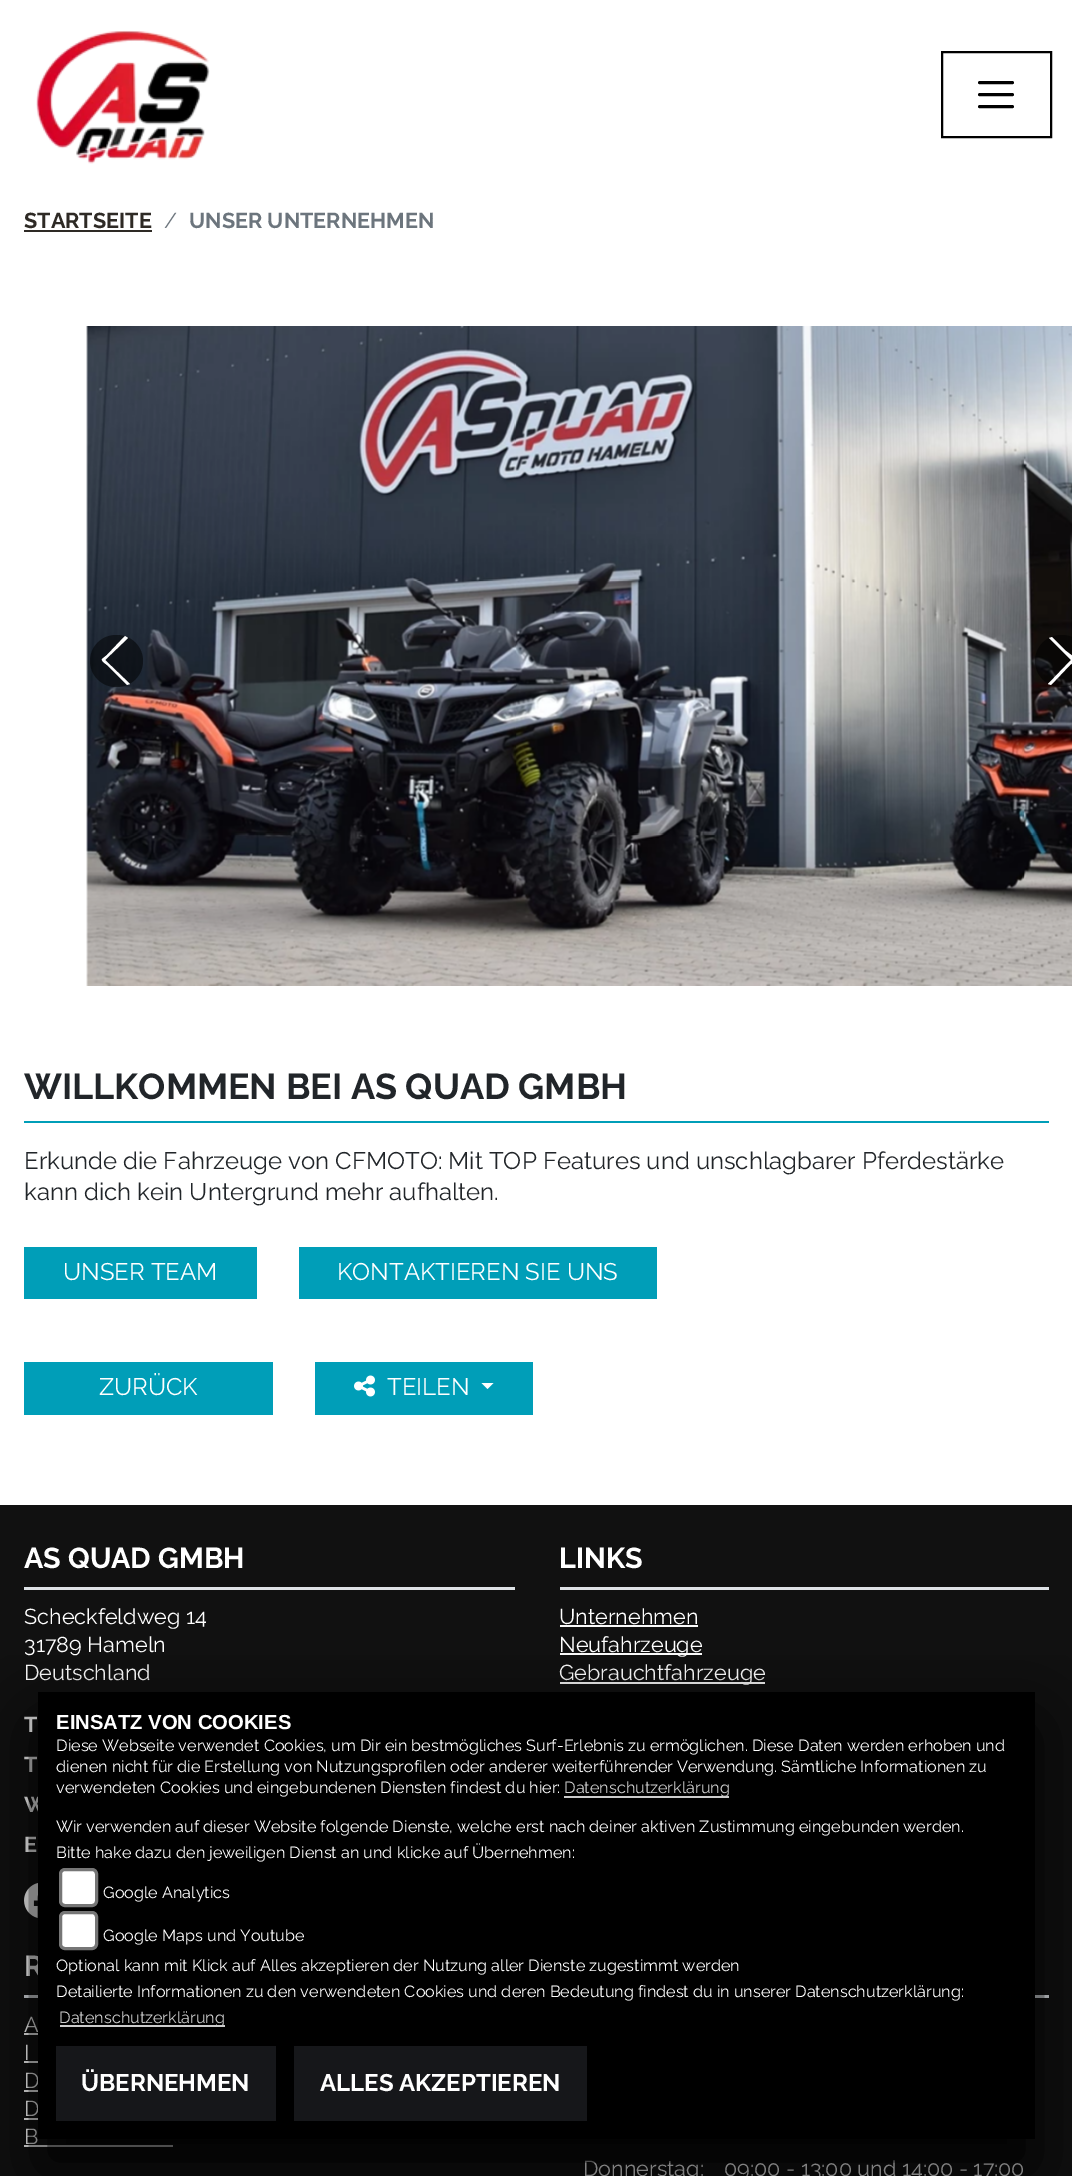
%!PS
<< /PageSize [1072 2176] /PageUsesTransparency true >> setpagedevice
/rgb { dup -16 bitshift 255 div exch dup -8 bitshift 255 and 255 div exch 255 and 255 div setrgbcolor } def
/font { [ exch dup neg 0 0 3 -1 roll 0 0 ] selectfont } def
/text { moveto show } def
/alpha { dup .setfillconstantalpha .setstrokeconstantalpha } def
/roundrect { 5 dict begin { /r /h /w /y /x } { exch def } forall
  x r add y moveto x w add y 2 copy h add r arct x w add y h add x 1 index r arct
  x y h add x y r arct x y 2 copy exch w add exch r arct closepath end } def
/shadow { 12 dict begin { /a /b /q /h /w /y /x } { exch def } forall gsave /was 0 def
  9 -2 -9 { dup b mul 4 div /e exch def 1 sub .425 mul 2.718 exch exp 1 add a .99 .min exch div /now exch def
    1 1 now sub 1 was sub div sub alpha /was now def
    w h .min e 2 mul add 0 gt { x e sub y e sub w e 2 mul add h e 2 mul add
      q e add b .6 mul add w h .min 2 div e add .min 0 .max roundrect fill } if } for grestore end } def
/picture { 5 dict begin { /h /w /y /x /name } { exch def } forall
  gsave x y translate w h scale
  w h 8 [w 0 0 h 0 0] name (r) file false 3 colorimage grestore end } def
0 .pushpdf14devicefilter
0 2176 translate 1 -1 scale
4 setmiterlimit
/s1 { /Raleway-Bold 21.6 font 16#2E2A25 rgb } def
/s2 { /Raleway-Regular 21.6 font 16#6C757D rgb } def
/s3 { /Raleway-Bold 21.6 font 16#6C757D rgb } def
/s4 { /Raleway-Bold 36 font 16#212529 rgb } def
/s5 { /Raleway-Regular 24 font 16#212529 rgb } def
/s6 { /Raleway-Regular 24 font 16#FFFFFF rgb } def
/s7 { /Raleway-Bold 28.75 font 16#FFFFFF rgb } def
/s8 { /Raleway-Regular 21.6 font 16#FFFFFF rgb } def
/s9 { /Raleway-Bold 21.6 font 16#FFFFFF rgb } def
/s10 { /LiberationSans-Bold 20.25 font 16#FFFFFF rgb } def
/s11 { /Raleway-Regular 16.2 font 16#FFFFFF rgb } def
/s12 { /Raleway-Regular 16.2 font 16#CCCCCC rgb } def
/s13 { /Raleway-Bold 24 font 16#FFFFFF rgb } def
16#FFFFFF rgb
0 0 1072 2176 rectfill
(pic1.raw) 36 30 174 134 picture
16#000000 rgb
2 setlinewidth
942 52 109 85 rectstroke
3 setlinewidth
1 setlinecap
979.5 82.5 moveto 1012.5 82.5 lineto 979.5 94.5 moveto 1012.5 94.5 lineto 979.5 106.5 moveto 1012.5 106.5 lineto stroke
s1
(STARTSEITE) 24 228 text
24 230 128 2 rectfill
s2
(/) 164 228 text
s3
(UNSER UNTERNEHMEN) 189 228 text
(pic2.raw) 86 326 986 660 picture
0.5 alpha
16#000000 rgb
90 635 53 52 26 roundrect fill
1 alpha
16#FFFFFF rgb
130 684 moveto 127 685 lineto 107 665 lineto 106 664 101 661 102 659 curveto 107 655 lineto 125 636 lineto 128 638 lineto 105 660 lineto closepath fill
0.5 alpha
16#000000 rgb
1035 635 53 52 26 roundrect fill
1 alpha
16#FFFFFF rgb
1052 637 moveto 1066 651 lineto 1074 657 lineto 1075 659 lineto 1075 662 1071 664 1070 665 curveto 1051 685 lineto 1048 684 lineto 1071 660 lineto 1049 638 lineto closepath fill
s4
(WILLKOMMEN BEI AS QUAD GMBH) 24 1099 text
16#009EB8 rgb
24 1121 1025 2 rectfill
s5
(Erkunde die Fahrzeuge von CFMOTO: Mit TOP Features und unschlagbarer Pferdestärke) 24 1169 text
(kann dich kein Untergrund mehr aufhalten.) 24 1200 text
16#009EB8 rgb
24 1247 233 52 rectfill
s6
(UNSER TEAM) 63 1280 text
16#009EB8 rgb
299 1247 358 52 rectfill
s6
(KONTAKTIEREN SIE UNS) 337 1280 text
16#009EB8 rgb
24 1362 249 53 rectfill
s6
(ZURÜCK) 99 1395 text
16#009EB8 rgb
315 1362 218 53 rectfill
(pic3.raw) 354 1375 21 22 picture
s6
(TEILEN) 387 1395 text
481.5 1383 moveto 493.5 1383 lineto 487.5 1389 lineto closepath fill
16#111111 rgb
0 1505 1072 671 rectfill
s7
(AS QUAD GMBH) 24 1568 text
16#DEE2E6 rgb
24 1587 491 3 rectfill
s8
(Scheckfeldweg 14) 24 1624 text
(31789 Hameln) 24 1652 text
(Deutschland) 24 1680 text
s9
(T) 24 1732 text
(T) 24 1772 text
(W) 24 1812 text
(E) 24 1852 text
(pic4.raw) 24 1883 14 35 picture
s7
(LINKS) 559 1568 text
16#DEE2E6 rgb
560 1587 489 3 rectfill
s8
(Unternehmen) 559 1624 text
16#FAFAFA rgb
560 1625 138 2 rectfill
560 1653 142 2 rectfill
s8
(Neufahrzeuge) 559 1652 text
16#FAFAFA rgb
560 1682 205 2 rectfill
s8
(Gebrauchtfahrzeuge) 559 1680 text
s7
(R) 24 1976 text
16#DEE2E6 rgb
24 1995 14 3 rectfill
s8
(A) 24 2032 text
16#FAFAFA rgb
24 2033 14 2 rectfill
s8
(I) 24 2060 text
16#FAFAFA rgb
24 2061 14 2 rectfill
s8
(D) 24 2088 text
16#FAFAFA rgb
24 2090 14 2 rectfill
s8
(D) 24 2116 text
16#FAFAFA rgb
24 2118 14 2 rectfill
s8
(B) 24 2144 text
16#FAFAFA rgb
24 2145 149 2 rectfill
16#DEE2E6 rgb
1035 1995 14 3 rectfill
s8
(Donnerstag:) 583 2176 text
(09:00 - 13:00 und 14:00 - 17:00) 724 2176 text
gsave
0 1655 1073 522 rectclip
16#000000 rgb
38 1725 997 447 0 37.5 1 shadow
grestore
16#000000 rgb
38 1692 997 447 rectfill
s10
(EINSATZ VON COOKIES) 56 1729 text
s11
(Diese Webseite verwendet Cookies, um Dir ein bestmögliches Surf-Erlebnis zu ermöglichen. Diese Daten werden erhoben und) 56 1751 text
56 1772 moveto -0.1 0 32 (dienen nicht für die Erstellung von Nutzungsprofilen oder anderer weiterführender Verwendung. Sämtliche Informationen zu) widthshow
56 1793 moveto -0.1 0 32 (verwendeten Cookies und eingebundenen Diensten findest du hier:) widthshow
16#CCCCCC rgb
564 1796 165 2 rectfill
(Datenschutzerklärung) 564 1793 text
s11
(Wir verwenden auf dieser Website folgende Dienste, welche erst nach deiner aktiven Zustimmung eingebunden werden.) 56 1832 text
(Bitte hake dazu den jeweiligen Dienst an und klicke auf Übernehmen:) 56 1858 text
60.5 1869.5 36 36 4.5 roundrect gsave fill grestore
16#767676 rgb
0 setlinecap
stroke
s11
(Google Analytics) 103 1898 text
60.5 1912.5 36 36 4.5 roundrect gsave fill grestore
16#767676 rgb
stroke
s11
(Google Maps und Youtube) 103 1941 text
(Optional kann mit Klick auf Alles akzeptieren der Nutzung aller Dienste zugestimmt werden) 56 1971 text
56 1997 moveto -0.1 0 32 (Detailierte Informationen zu den verwendeten Cookies und deren Bedeutung findest du in unserer Datenschutzerklärung:) widthshow
16#CCCCCC rgb
60 2025 165 2 rectfill
(Datenschutzerklärung) 59 2023 text
16#16171A rgb
56 2046 220 75 rectfill
s13
(ÜBERNEHMEN) 81 2091 text
16#16171A rgb
294 2046 293 75 rectfill
s13
(ALLES AKZEPTIEREN) 320 2091 text
.poppdf14devicefilter showpage
